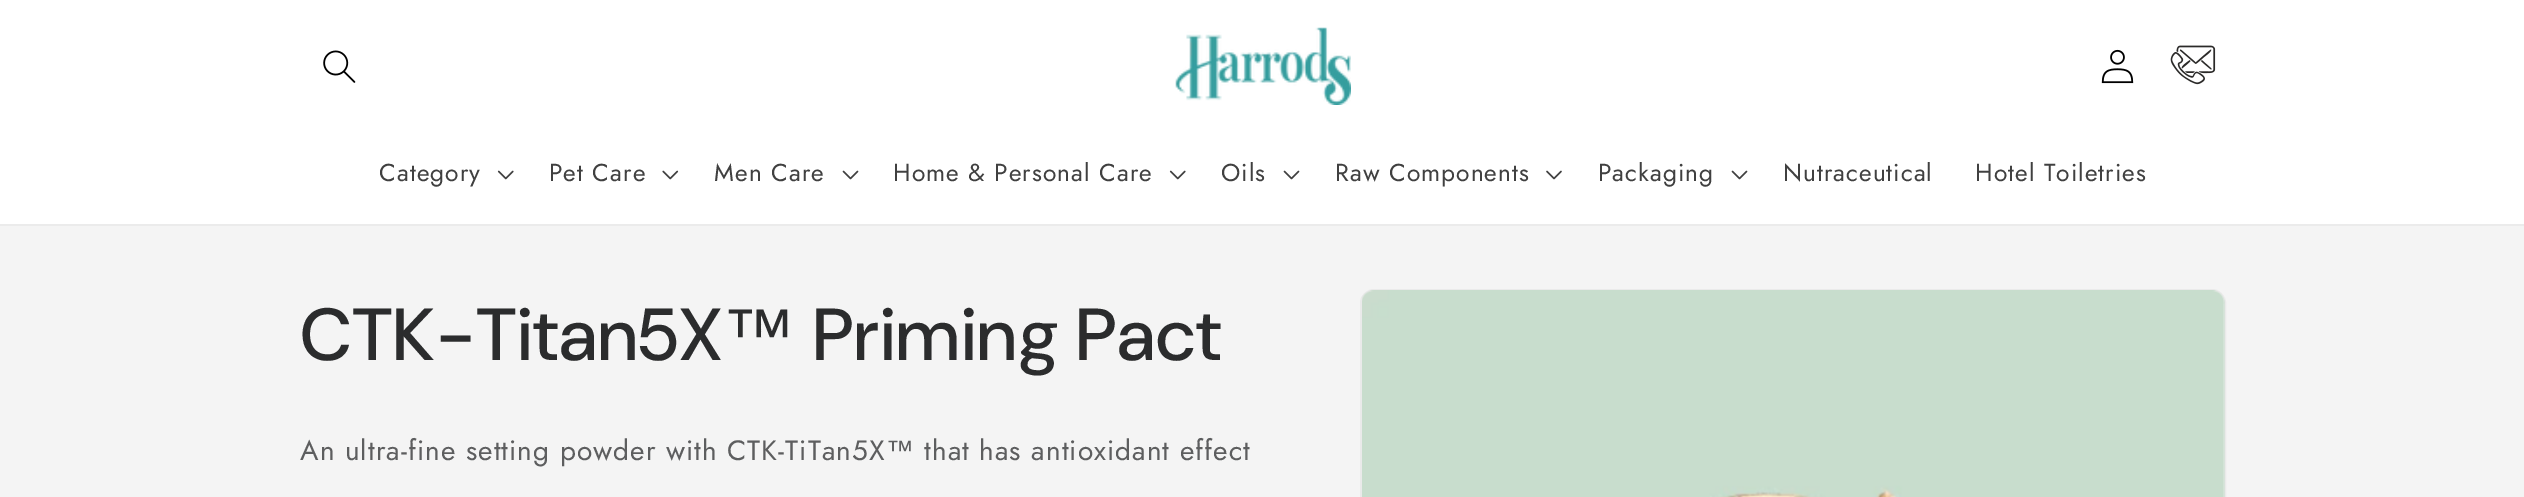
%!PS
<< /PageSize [2524 497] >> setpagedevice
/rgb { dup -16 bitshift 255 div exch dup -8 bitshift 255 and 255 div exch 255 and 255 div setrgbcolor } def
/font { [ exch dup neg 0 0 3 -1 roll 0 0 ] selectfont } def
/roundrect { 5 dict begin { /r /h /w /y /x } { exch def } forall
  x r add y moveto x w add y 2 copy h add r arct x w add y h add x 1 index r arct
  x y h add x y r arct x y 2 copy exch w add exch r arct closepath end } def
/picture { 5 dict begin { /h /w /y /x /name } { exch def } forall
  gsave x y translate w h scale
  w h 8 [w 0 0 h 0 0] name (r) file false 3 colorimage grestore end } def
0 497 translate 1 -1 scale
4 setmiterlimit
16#F4F4F4 rgb
0 0 2524 497 rectfill
16#FFFFFF rgb
0 0 2524 224 rectfill
16#EBEBEB rgb
0 224 2524 2 rectfill
(pic1.raw) 323 50 33 33 picture
(pic2.raw) 1175 27 176 78 picture
(pic3.raw) 2101 49 33 35 picture
(pic4.raw) 2170 45 46 40 picture
/Jost-Regular 24.5 font
16#404040 rgb
379 181 moveto 1.05 0 (Category) ashow
(pic5.raw) 497 170 17 10 picture
549 181 moveto 1.05 0 (Pet Care) ashow
(pic6.raw) 662 170 17 10 picture
714 181 moveto 1.05 0 (Men Care) ashow
(pic7.raw) 842 170 17 10 picture
893 181 moveto 1.05 0 (Home & Personal Care) ashow
(pic5.raw) 1169 170 17 10 picture
1221 181 moveto 1.05 0 (Oils) ashow
(pic7.raw) 1283 170 17 10 picture
1335 181 moveto 1.05 0 (Raw Components) ashow
(pic8.raw) 1546 170 16 10 picture
1598 181 moveto 1.05 0 (Packaging) ashow
(pic7.raw) 1731 170 17 10 picture
1783 181 moveto 1.05 0 (Nutraceutical) ashow
1975 181 moveto 1.05 0 (Hotel Toiletries) ashow
/DMSans-Medium 73.5 font
16#2B2C2D rgb
300 360 moveto 1.1 0 (CTK-Titan5X) ashow
/LiberationSans-Regular 73.5 font
722 360 moveto 1.1 0 (™) ashow
/DMSans-Medium 73.5 font
813 360 moveto 1.1 0 (Priming Pact) ashow
/Jost-Regular 28 font
16#5D5E5F rgb
300 460 moveto 1.05 0 (An ultra-fine setting powder with CTK-TiTan5X) ashow
/LiberationSans-Regular 28 font
886 460 moveto 1.05 0 (™) ashow
/Jost-Regular 28 font
924 460 moveto 1.05 0 (that has antioxidant effect) ashow
16#EAEAEA rgb
2 setlinewidth
1361 290 864 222 13 roundrect stroke
(pic9.raw) 1362 290 863 207 picture
showpage
